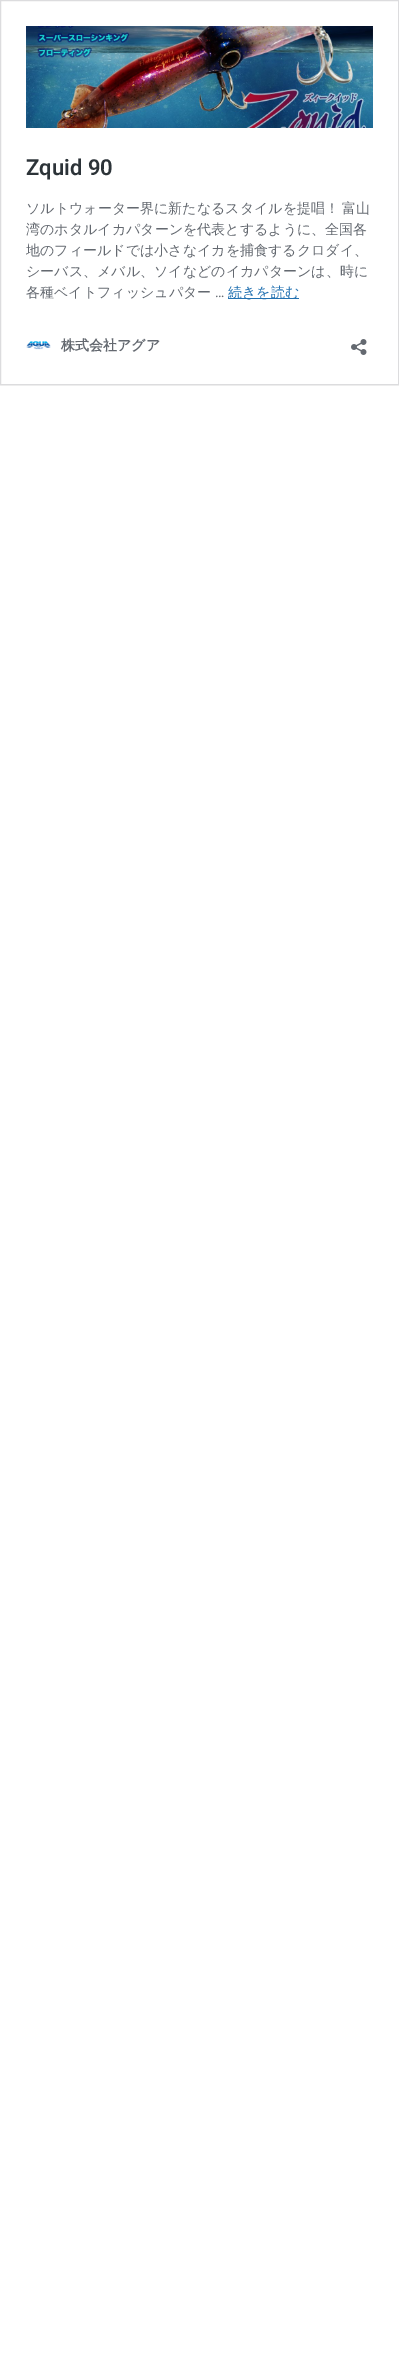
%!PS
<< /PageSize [399 2376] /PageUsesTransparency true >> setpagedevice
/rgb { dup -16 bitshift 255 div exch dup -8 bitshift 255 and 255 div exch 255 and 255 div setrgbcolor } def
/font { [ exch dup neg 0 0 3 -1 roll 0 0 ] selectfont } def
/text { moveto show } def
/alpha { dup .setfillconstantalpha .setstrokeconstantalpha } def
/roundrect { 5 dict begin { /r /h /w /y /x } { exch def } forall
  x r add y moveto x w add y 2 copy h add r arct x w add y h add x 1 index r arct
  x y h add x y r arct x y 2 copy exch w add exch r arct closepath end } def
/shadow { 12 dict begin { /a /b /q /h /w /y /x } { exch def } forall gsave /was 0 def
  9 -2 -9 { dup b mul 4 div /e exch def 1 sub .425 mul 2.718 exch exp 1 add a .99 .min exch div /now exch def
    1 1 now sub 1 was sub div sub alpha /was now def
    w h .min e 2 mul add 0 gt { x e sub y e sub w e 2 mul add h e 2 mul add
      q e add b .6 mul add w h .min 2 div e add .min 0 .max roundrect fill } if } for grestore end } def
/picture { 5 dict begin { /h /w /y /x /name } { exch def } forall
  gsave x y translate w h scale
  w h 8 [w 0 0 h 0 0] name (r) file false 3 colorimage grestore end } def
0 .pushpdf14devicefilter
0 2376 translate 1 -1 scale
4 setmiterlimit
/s1 { /Roboto-SemiBold 22 font 16#2C3338 rgb } def
/s2 { /WenQuanYiZenHei-Medium 14 font 16#646970 rgb } def
/s3 { /Roboto-Regular 14 font 16#646970 rgb } def
/s4 { /WenQuanYiZenHei-Medium 14 font 16#2271B1 rgb } def
/s5 { /WenQuanYiZenHei-Bold 14 font 16#646970 rgb } def
16#FFFFFF rgb
0 0 399 2376 rectfill
gsave
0 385 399 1 rectclip
16#000000 rgb
0 1 399 385 0 0.5 0.05 shadow
grestore
16#DCDCDE rgb
0.5 0.5 398 384 rectstroke
(pic1.raw) 26 26 347 102 picture
s1
(Zquid 90) 26 175 text
/WenQuanYiZenHei-Medium 14 font
16#646970 rgb
26 213 moveto -1 0 32 (ソルトウォーター界に新たなるスタイルを提唱！ 富山) widthshow
(湾のホタルイカパターンを代表とするように、全国各) 26 234 text
(地のフィールドでは小さなイカを捕食するクロダイ、) 26 255 text
(シーバス、メバル、ソイなどのイカパターンは、時に) 26 276 text
(各種ベイトフィッシュパター) 26 297 text
s3
(…) 215 297 text
16#2271B1 rgb
228 298 71 1 rectfill
s4
(続きを読む) 228 297 text
(pic2.raw) 26 341 25 9 picture
s5
(株式会社アグア) 61 350 text
(pic3.raw) 351 339 16 16 picture
.poppdf14devicefilter showpage
